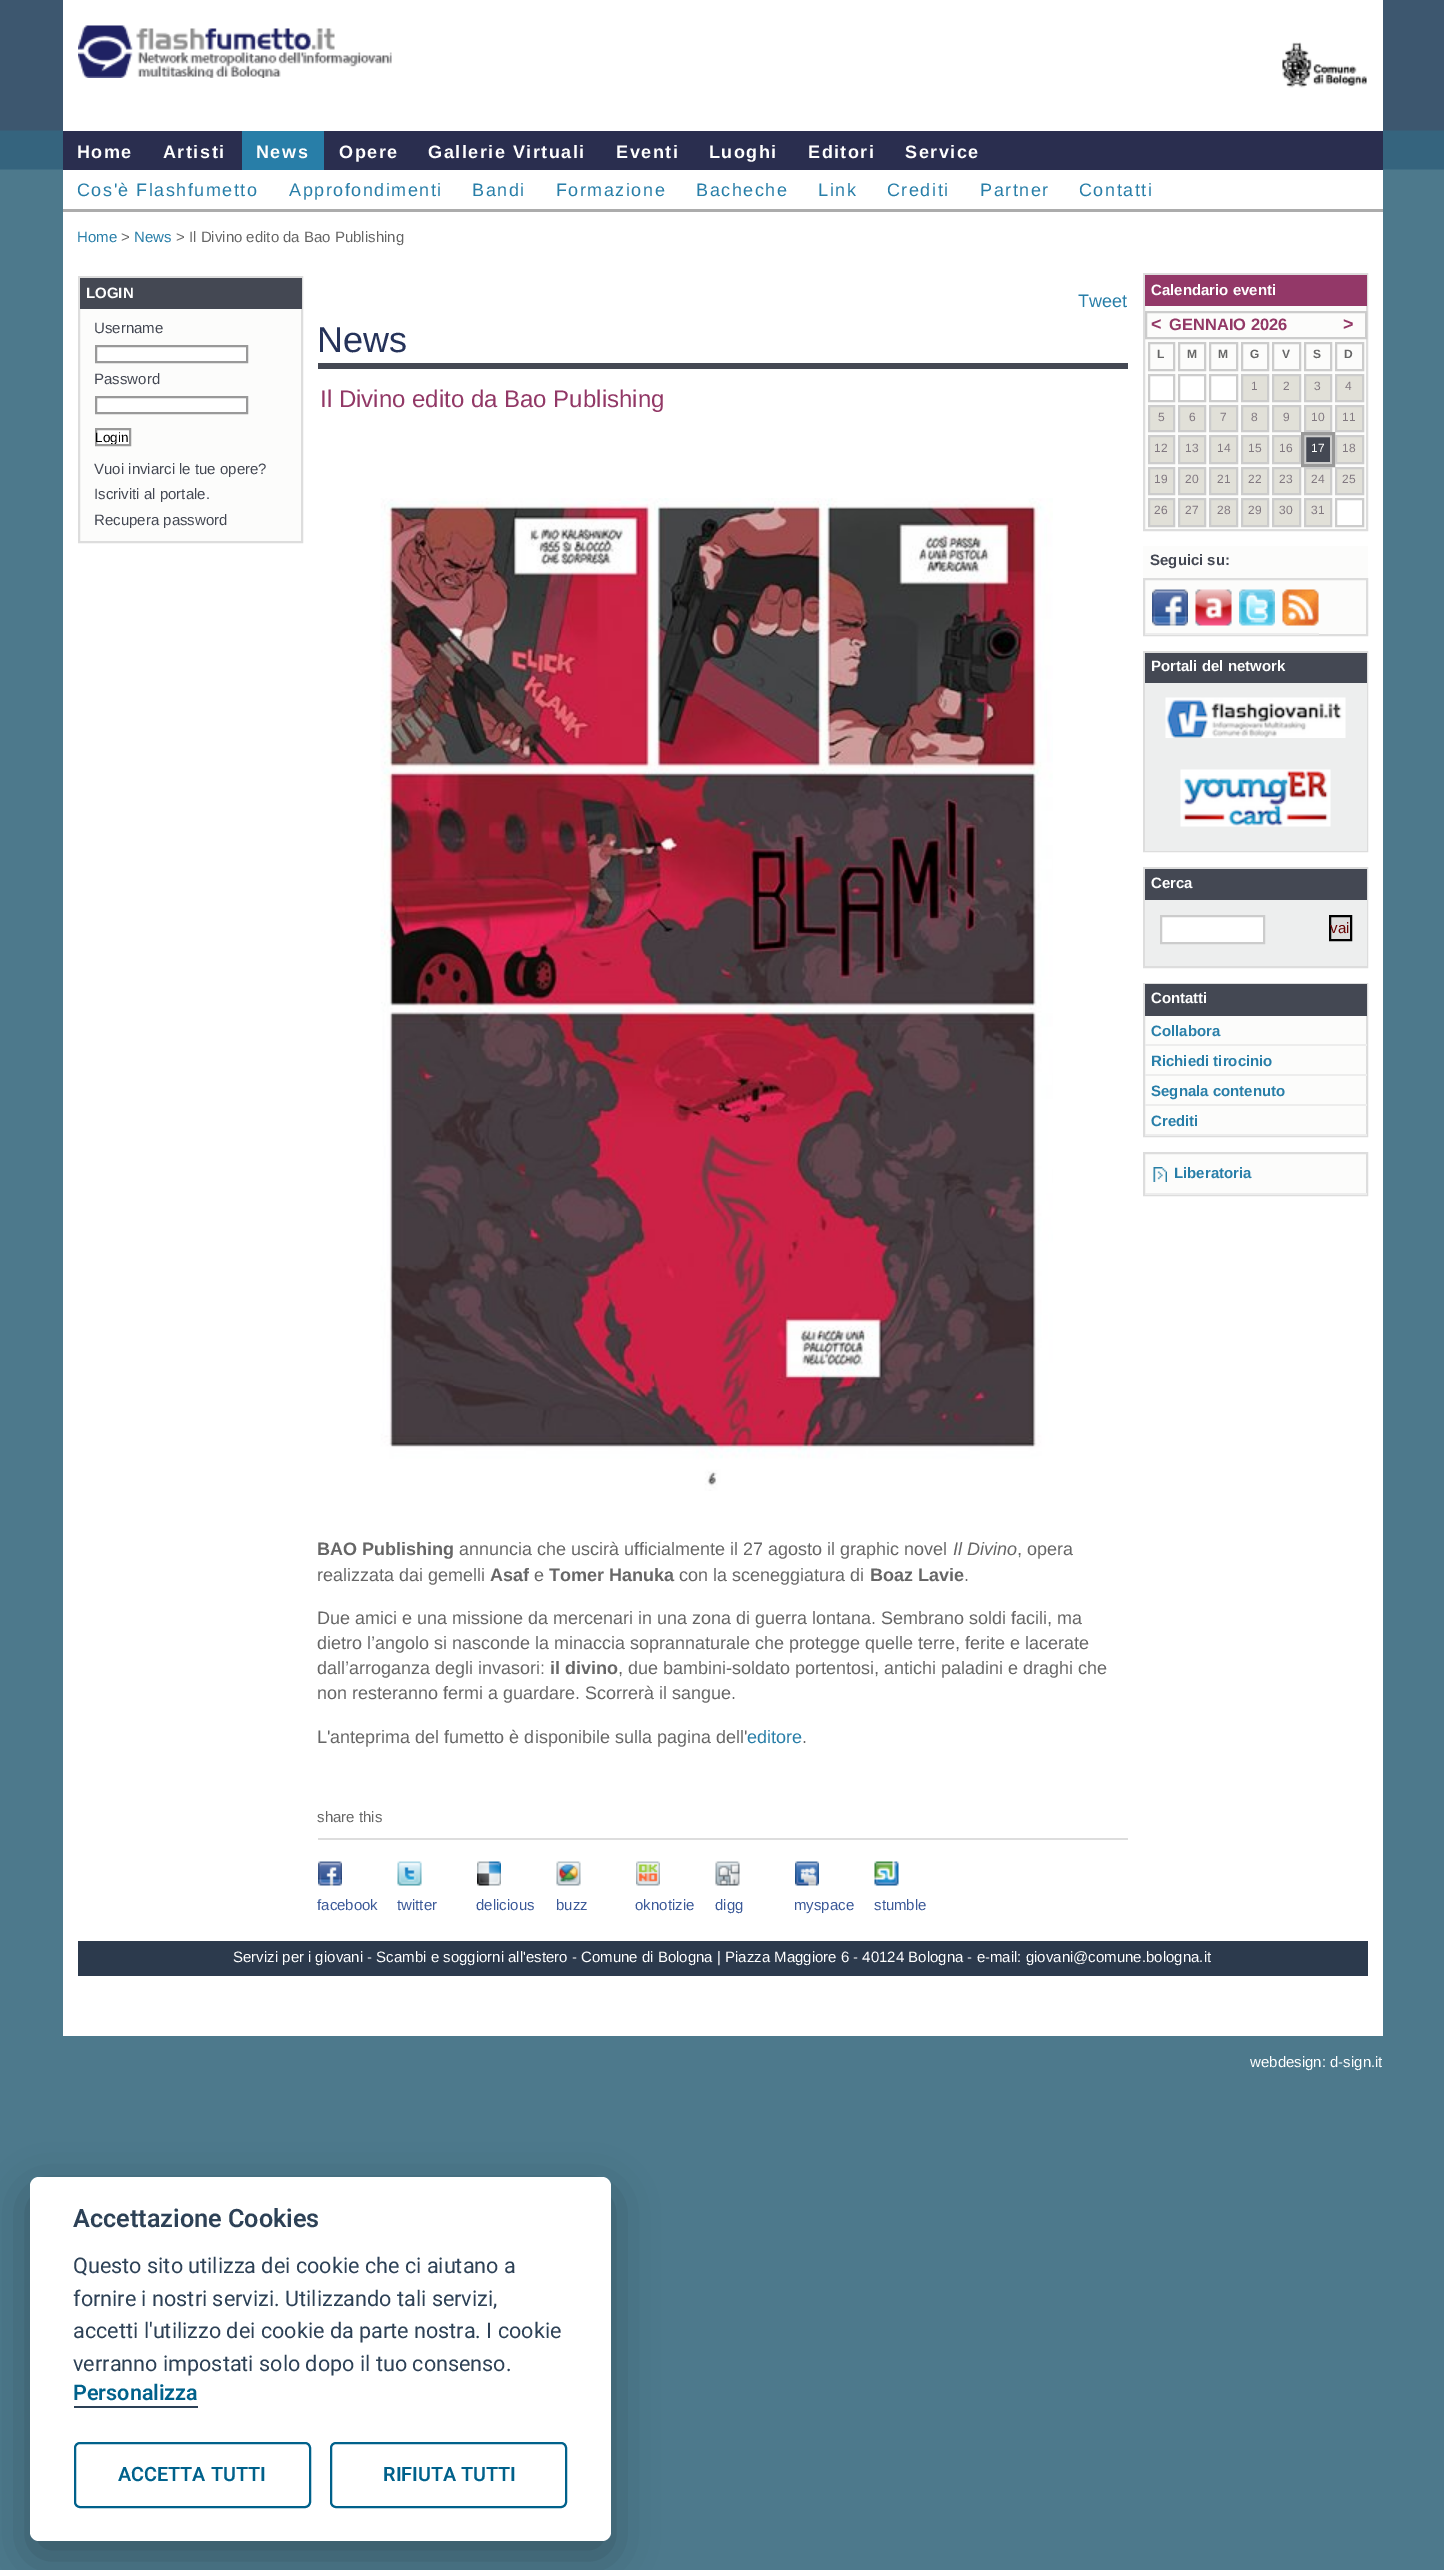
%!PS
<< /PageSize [1444 2570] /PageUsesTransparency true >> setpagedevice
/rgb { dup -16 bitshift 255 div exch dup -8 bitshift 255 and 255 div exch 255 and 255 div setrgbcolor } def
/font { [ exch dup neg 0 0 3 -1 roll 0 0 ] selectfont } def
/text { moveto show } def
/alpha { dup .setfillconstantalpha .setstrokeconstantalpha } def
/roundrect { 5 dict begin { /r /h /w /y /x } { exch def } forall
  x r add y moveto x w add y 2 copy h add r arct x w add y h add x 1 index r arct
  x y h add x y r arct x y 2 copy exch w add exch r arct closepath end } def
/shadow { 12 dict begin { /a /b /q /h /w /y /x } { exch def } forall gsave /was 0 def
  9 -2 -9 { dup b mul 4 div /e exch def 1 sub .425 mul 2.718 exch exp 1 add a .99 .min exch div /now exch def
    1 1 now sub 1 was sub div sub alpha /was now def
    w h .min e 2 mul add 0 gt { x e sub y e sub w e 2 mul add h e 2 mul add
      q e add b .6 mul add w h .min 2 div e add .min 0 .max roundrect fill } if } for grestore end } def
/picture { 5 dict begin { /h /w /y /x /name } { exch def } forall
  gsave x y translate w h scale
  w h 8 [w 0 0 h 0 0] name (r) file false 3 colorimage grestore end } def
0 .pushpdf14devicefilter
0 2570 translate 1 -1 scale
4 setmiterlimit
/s1 { /LiberationSans-Regular 15 font 16#287EA8 rgb } def
/s2 { /LiberationSans-Regular 15 font 16#666666 rgb } def
/s3 { /LiberationSans-Bold 15 font 16#FFFFFF rgb } def
/s4 { /LiberationSans-Regular 15 font 16#444853 rgb } def
/s5 { /LiberationSans-Regular 13.5 font 16#000000 rgb } def
/s6 { /LiberationSans-Regular 18 font 16#287EA8 rgb } def
/s7 { /LiberationSans-Regular 36 font 16#26335A rgb } def
/s8 { /LiberationSans-Regular 24 font 16#923866 rgb } def
/s9 { /LiberationSans-Bold 18 font 16#666666 rgb } def
/s10 { /LiberationSans-Regular 18 font 16#666666 rgb } def
/s11 { /LiberationSans-Italic 18 font 16#666666 rgb } def
/s12 { /LiberationSans-Regular 15 font 16#3B5998 rgb } def
/s13 { /LiberationSans-Bold 18 font 16#923866 rgb } def
/s14 { /LiberationSans-Bold 16.5 font 16#923866 rgb } def
/s15 { /LiberationSans-Bold 12 font 16#666666 rgb } def
/s16 { /LiberationSans-Regular 12 font 16#827981 rgb } def
/s17 { /LiberationSans-Regular 12 font 16#FFFFFF rgb } def
/s18 { /LiberationSans-Bold 15 font 16#444853 rgb } def
/s19 { /LiberationSans-Regular 15 font 16#660000 rgb } def
/s20 { /LiberationSans-Bold 15 font 16#287EA8 rgb } def
/s21 { /LiberationSans-Regular 15 font 16#FFFFFF rgb } def
/s22 { /Roboto-SemiBold 25.25 font 16#2D4156 rgb } def
/s23 { /Roboto-Regular 21.6 font 16#2D4156 rgb } def
/s24 { /Roboto-SemiBold 21.6 font 16#00618B rgb } def
/s25 { /Roboto-SemiBold 19.75 font 16#00618B rgb } def
16#4D798C rgb
0 0 1444 2570 rectfill
(pic1.raw) 0 0 1444 170 picture
16#FFFFFF rgb
63 0 1320 209 rectfill
(pic2.raw) 78 25 314 53 picture
(pic3.raw) 1282 42 85 46 picture
16#2A2E4F rgb
63 131 1320 39 rectfill
/LiberationSans-Bold 18 font
16#FFFFFF rgb
77 158 moveto 1.5 0 (Home) ashow
163 158 moveto 1.5 0 (Artisti) ashow
16#287EA8 rgb
242 131 82 39 rectfill
16#FFFFFF rgb
256 158 moveto 1.5 0 (News) ashow
339 158 moveto 1.5 0 (Opere) ashow
428 158 moveto 1.5 0 (Gallerie Virtuali) ashow
616 158 moveto 1.5 0 (Eventi) ashow
709 158 moveto 1.5 0 (Luoghi) ashow
808 158 moveto 1.5 0 (Editori) ashow
905 158 moveto 1.5 0 (Service) ashow
16#ACACAC rgb
63 209 1320 3 rectfill
/LiberationSans-Regular 18 font
16#287EA8 rgb
77 196 moveto 1.5 0 (Cos'è Flashfumetto) ashow
289 196 moveto 1.5 0 (Approfondimenti) ashow
472 196 moveto 1.5 0 (Bandi) ashow
556 196 moveto 1.5 0 (Formazione) ashow
696 196 moveto 1.5 0 (Bacheche) ashow
818 196 moveto 1.5 0 (Link) ashow
887 196 moveto 1.5 0 (Crediti) ashow
980 196 moveto 1.5 0 (Partner) ashow
1079 196 moveto 1.5 0 (Contatti) ashow
16#FFFFFF rgb
63 212 1320 1824 rectfill
s1
(Home) 77 242 text
s2
(>) 121 242 text
s1
(News) 134 242 text
s2
(> Il Divino edito da Bao Publishing) 176 242 text
16#FCFCFB rgb
80 309 221 232 rectfill
16#DDDDDD rgb
2 setlinewidth
79 277 223 265 rectstroke
16#444853 rgb
80 278 222 31 rectfill
s3
(LOGIN) 86 298 text
s4
(Username) 94 333 text
16#FFFFFF rgb
96 346 moveto 247 346 lineto 247 362 lineto 96 362 lineto closepath gsave fill grestore
16#999999 rgb
stroke
s4
(Password) 94 384 text
16#FFFFFF rgb
96 397 moveto 247 397 lineto 247 413 lineto 96 413 lineto closepath gsave fill grestore
16#999999 rgb
stroke
16#FFFFFF rgb
96 429 moveto 130 429 lineto 130 445 lineto 96 445 lineto closepath gsave fill grestore
16#999999 rgb
stroke
gsave
96 429 33 15 rectclip
s5
(Login) 95 442 text
grestore
s4
(Vuoi inviarci le tue opere?) 94 474 text
(Iscriviti al portale.) 94 499 text
(Recupera password) 94 525 text
s6
(Tweet) 1078 307 text
16#444853 rgb
318 363 810 6 rectfill
s7
(News) 317 352 text
s8
(Il Divino edito da Bao Publishing) 320 407 text
(pic4.raw) 380 498 673 993 picture
s9
(BAO Publishing) 317 1555 text
s10
(annuncia che uscirà ufficialmente il 27 agosto il graphic novel) 459 1555 text
s11
(Il Divino) 953 1555 text
s10
(, opera) 1017 1555 text
(realizzata dai gemelli) 317 1581 text
s9
(Asaf) 490 1581 text
s10
(e) 534 1581 text
s9
(Tomer Hanuka) 549 1581 text
s10
(con la sceneggiatura di) 679 1581 text
s9
(Boaz Lavie) 870 1581 text
s10
(.) 964 1581 text
(Due amici e una missione da mercenari in una zona di guerra lontana. Sembrano soldi facili, ma) 317 1624 text
(dietro l’angolo si nasconde la minaccia soprannaturale che protegge quelle terre, ferite e lacerate) 317 1649 text
(dall’arroganza degli invasori:) 317 1674 text
s9
(il divino) 550 1674 text
s10
(, due bambini-soldato portentosi, antichi paladini e draghi che) 618 1674 text
(non resteranno fermi a guardare. Scorrerà il sangue.) 317 1699 text
(L'anteprima del fumetto è disponibile sulla pagina dell') 317 1743 text
s6
(editore) 747 1743 text
s10
(.) 802 1743 text
s2
(share this) 317 1822 text
16#DDDDDD rgb
318 1838 810 2 rectfill
(pic5.raw) 318 1861 24 25 picture
s12
(facebook) 317 1910 text
(pic6.raw) 397 1861 25 25 picture
(twitter) 397 1910 text
(pic7.raw) 477 1861 24 25 picture
(delicious) 476 1910 text
(pic8.raw) 556 1861 25 25 picture
(buzz) 556 1910 text
(pic9.raw) 636 1861 24 25 picture
(oknotizie) 635 1910 text
(pic10.raw) 715 1861 25 25 picture
(digg) 715 1910 text
(pic11.raw) 795 1861 24 25 picture
(myspace) 794 1910 text
(pic12.raw) 874 1861 25 25 picture
(stumble) 874 1910 text
16#FCFCFB rgb
1145 306 221 223 rectfill
16#DDDDDD rgb
1144 274 223 256 rectstroke
16#933868 rgb
1145 275 222 31 rectfill
s3
(Calendario eventi) 1151 295 text
16#CCCCCC rgb
1146 312 220 26 rectstroke
s13
(<) 1151 330 text
s14
(GENNAIO 2026) 1169 330 text
s13
(>) 1343 330 text
16#CCCCCC rgb
1149 343 25 27 rectstroke
s15
(L) 1157 358 text
16#CCCCCC rgb
1179 343 26 27 rectstroke
s15
(M) 1187 358 text
16#CCCCCC rgb
1210 343 27 27 rectstroke
s15
(M) 1218 358 text
16#CCCCCC rgb
1242 343 26 27 rectstroke
s15
(G) 1250 358 text
16#CCCCCC rgb
1273 343 27 27 rectstroke
s15
(V) 1282 358 text
16#CCCCCC rgb
1305 343 26 27 rectstroke
s15
(S) 1313 358 text
16#CCCCCC rgb
1336 343 27 27 rectstroke
s15
(D) 1344 358 text
16#FFFFFF rgb
1149 375 moveto 1174 375 lineto 1174 401 lineto 1149 401 lineto closepath gsave fill grestore
16#CCCCCC rgb
stroke
16#FFFFFF rgb
1179 375 moveto 1205 375 lineto 1205 401 lineto 1179 401 lineto closepath gsave fill grestore
16#CCCCCC rgb
stroke
16#FFFFFF rgb
1210 375 moveto 1237 375 lineto 1237 401 lineto 1210 401 lineto closepath gsave fill grestore
16#CCCCCC rgb
stroke
16#E1E0D8 rgb
1242 375 moveto 1268 375 lineto 1268 401 lineto 1242 401 lineto closepath gsave fill grestore
16#CCCCCC rgb
stroke
s16
(1) 1251 390 text
16#E1E0D8 rgb
1273 375 moveto 1300 375 lineto 1300 401 lineto 1273 401 lineto closepath gsave fill grestore
16#CCCCCC rgb
stroke
s16
(2) 1283 390 text
16#E1E0D8 rgb
1305 375 moveto 1331 375 lineto 1331 401 lineto 1305 401 lineto closepath gsave fill grestore
16#CCCCCC rgb
stroke
s16
(3) 1314 390 text
16#E1E0D8 rgb
1336 375 moveto 1363 375 lineto 1363 401 lineto 1336 401 lineto closepath gsave fill grestore
16#CCCCCC rgb
stroke
s16
(4) 1345 390 text
16#E1E0D8 rgb
1149 406 moveto 1174 406 lineto 1174 431 lineto 1149 431 lineto closepath gsave fill grestore
16#CCCCCC rgb
stroke
s16
(5) 1158 421 text
16#E1E0D8 rgb
1179 406 moveto 1205 406 lineto 1205 431 lineto 1179 431 lineto closepath gsave fill grestore
16#CCCCCC rgb
stroke
s16
(6) 1189 421 text
16#E1E0D8 rgb
1210 406 moveto 1237 406 lineto 1237 431 lineto 1210 431 lineto closepath gsave fill grestore
16#CCCCCC rgb
stroke
s16
(7) 1220 421 text
16#E1E0D8 rgb
1242 406 moveto 1268 406 lineto 1268 431 lineto 1242 431 lineto closepath gsave fill grestore
16#CCCCCC rgb
stroke
s16
(8) 1251 421 text
16#E1E0D8 rgb
1273 406 moveto 1300 406 lineto 1300 431 lineto 1273 431 lineto closepath gsave fill grestore
16#CCCCCC rgb
stroke
s16
(9) 1283 421 text
16#E1E0D8 rgb
1305 406 moveto 1331 406 lineto 1331 431 lineto 1305 431 lineto closepath gsave fill grestore
16#CCCCCC rgb
stroke
s16
(10) 1311 421 text
16#E1E0D8 rgb
1336 406 moveto 1363 406 lineto 1363 431 lineto 1336 431 lineto closepath gsave fill grestore
16#CCCCCC rgb
stroke
s16
(11) 1342 421 text
16#E1E0D8 rgb
1149 436 moveto 1174 436 lineto 1174 463 lineto 1149 463 lineto closepath gsave fill grestore
16#CCCCCC rgb
stroke
s16
(12) 1154 452 text
16#E1E0D8 rgb
1179 436 moveto 1205 436 lineto 1205 463 lineto 1179 463 lineto closepath gsave fill grestore
16#CCCCCC rgb
stroke
s16
(13) 1185 452 text
16#E1E0D8 rgb
1210 436 moveto 1237 436 lineto 1237 463 lineto 1210 463 lineto closepath gsave fill grestore
16#CCCCCC rgb
stroke
s16
(14) 1217 452 text
16#E1E0D8 rgb
1242 436 moveto 1268 436 lineto 1268 463 lineto 1242 463 lineto closepath gsave fill grestore
16#CCCCCC rgb
stroke
s16
(15) 1248 452 text
16#E1E0D8 rgb
1273 436 moveto 1300 436 lineto 1300 463 lineto 1273 463 lineto closepath gsave fill grestore
16#CCCCCC rgb
stroke
s16
(16) 1279 452 text
16#444853 rgb
1305 436 moveto 1331 436 lineto 1331 463 lineto 1305 463 lineto closepath gsave fill grestore
16#CCCCCC rgb
stroke
16#999999 rgb
3 setlinewidth
1302.5 433.5 31 32 rectstroke
s17
(17) 1311 452 text
16#E1E0D8 rgb
1336 436 moveto 1363 436 lineto 1363 463 lineto 1336 463 lineto closepath gsave fill grestore
16#CCCCCC rgb
2 setlinewidth
stroke
s16
(18) 1342 452 text
16#E1E0D8 rgb
1149 468 moveto 1174 468 lineto 1174 494 lineto 1149 494 lineto closepath gsave fill grestore
16#CCCCCC rgb
stroke
s16
(19) 1154 483 text
16#E1E0D8 rgb
1179 468 moveto 1205 468 lineto 1205 494 lineto 1179 494 lineto closepath gsave fill grestore
16#CCCCCC rgb
stroke
s16
(20) 1185 483 text
16#E1E0D8 rgb
1210 468 moveto 1237 468 lineto 1237 494 lineto 1210 494 lineto closepath gsave fill grestore
16#CCCCCC rgb
stroke
s16
(21) 1217 483 text
16#E1E0D8 rgb
1242 468 moveto 1268 468 lineto 1268 494 lineto 1242 494 lineto closepath gsave fill grestore
16#CCCCCC rgb
stroke
s16
(22) 1248 483 text
16#E1E0D8 rgb
1273 468 moveto 1300 468 lineto 1300 494 lineto 1273 494 lineto closepath gsave fill grestore
16#CCCCCC rgb
stroke
s16
(23) 1279 483 text
16#E1E0D8 rgb
1305 468 moveto 1331 468 lineto 1331 494 lineto 1305 494 lineto closepath gsave fill grestore
16#CCCCCC rgb
stroke
s16
(24) 1311 483 text
16#E1E0D8 rgb
1336 468 moveto 1363 468 lineto 1363 494 lineto 1336 494 lineto closepath gsave fill grestore
16#CCCCCC rgb
stroke
s16
(25) 1342 483 text
16#E1E0D8 rgb
1149 499 moveto 1174 499 lineto 1174 526 lineto 1149 526 lineto closepath gsave fill grestore
16#CCCCCC rgb
stroke
s16
(26) 1154 514 text
16#E1E0D8 rgb
1179 499 moveto 1205 499 lineto 1205 526 lineto 1179 526 lineto closepath gsave fill grestore
16#CCCCCC rgb
stroke
s16
(27) 1185 514 text
16#E1E0D8 rgb
1210 499 moveto 1237 499 lineto 1237 526 lineto 1210 526 lineto closepath gsave fill grestore
16#CCCCCC rgb
stroke
s16
(28) 1217 514 text
16#E1E0D8 rgb
1242 499 moveto 1268 499 lineto 1268 526 lineto 1242 526 lineto closepath gsave fill grestore
16#CCCCCC rgb
stroke
s16
(29) 1248 514 text
16#E1E0D8 rgb
1273 499 moveto 1300 499 lineto 1300 526 lineto 1273 526 lineto closepath gsave fill grestore
16#CCCCCC rgb
stroke
s16
(30) 1279 514 text
16#E1E0D8 rgb
1305 499 moveto 1331 499 lineto 1331 526 lineto 1305 526 lineto closepath gsave fill grestore
16#CCCCCC rgb
stroke
s16
(31) 1311 514 text
16#FFFFFF rgb
1336 499 moveto 1363 499 lineto 1363 526 lineto 1336 526 lineto closepath gsave fill grestore
16#CCCCCC rgb
stroke
16#FCFCFB rgb
1143 546 225 88 rectfill
s18
(Seguici su:) 1150 565 text
16#DDDDDD rgb
1144 579 223 56 rectstroke
16#EDEDED rgb
1145 633 174 2 rectfill
(pic13.raw) 1152 589 36 37 picture
(pic14.raw) 1195 589 37 37 picture
(pic15.raw) 1239 589 36 37 picture
(pic16.raw) 1282 589 37 37 picture
16#DDDDDD rgb
1144 652 223 199 rectstroke
16#444853 rgb
1145 653 222 30 rectfill
s3
(Portali del network) 1151 671 text
16#EDEEEE rgb
1145 683 222 168 rectfill
(pic17.raw) 1165 697 181 41 picture
(pic18.raw) 1180 769 151 58 picture
16#DDDDDD rgb
1144 868 223 99 rectstroke
16#444853 rgb
1145 869 222 31 rectfill
s3
(Cerca) 1151 888 text
16#EDEEEE rgb
1145 900 222 66 rectfill
16#FFFFFF rgb
1161 916 moveto 1264 916 lineto 1264 943 lineto 1161 943 lineto closepath gsave fill grestore
16#CCCCCC rgb
stroke
16#DDDDDD rgb
1330 916 moveto 1351 916 lineto 1351 940 lineto 1330 940 lineto closepath gsave fill grestore
16#000000 rgb
stroke
s19
(vai) 1330 933 text
16#FCFCFB rgb
1145 1016 221 118 rectfill
16#DDDDDD rgb
1144 984 223 152 rectstroke
16#444853 rgb
1145 984 222 32 rectfill
s3
(Contatti) 1151 1003 text
16#EDEDED rgb
1145 1044 222 2 rectfill
s20
(Collabora) 1151 1036 text
16#EDEDED rgb
1145 1074 222 2 rectfill
s20
(Richiedi tirocinio) 1151 1066 text
16#EDEDED rgb
1145 1104 222 2 rectfill
s20
(Segnala contenuto) 1151 1096 text
16#EDEDED rgb
1145 1134 222 2 rectfill
s20
(Crediti) 1151 1126 text
16#FCFCFB rgb
1145 1154 221 39 rectfill
16#DDDDDD rgb
1144 1153 223 42 rectstroke
16#EDEDED rgb
1145 1193 222 2 rectfill
(pic19.raw) 1153 1167 14 15 picture
s20
(Liberatoria) 1174 1178 text
16#2C3A4D rgb
78 1941 1290 35 rectfill
s21
(Servizi per i giovani - Scambi e soggiorni all'estero - Comune di Bologna | Piazza Maggiore 6 - 40124 Bologna - e-mail: giovani@comune.bologna.it) 233 1962 text
(webdesign: d-sign.it) 1250 2067 text
16#020203 rgb
30 2192 581 364 9 22.5 0.28 shadow
16#FFFFFF rgb
30 2177 581 364 9 roundrect fill
s22
(Accettazione Cookies) 73 2227 text
s23
(Questo sito utilizza dei cookie che ci aiutano a) 73 2273 text
(fornire i nostri servizi. Utilizzando tali servizi,) 73 2306 text
(accetti l'utilizzo dei cookie da parte nostra. I cookie) 73 2338 text
(verranno impostati solo dopo il tuo consenso.) 73 2371 text
74 2406 124 2 rectfill
s24
(Personalizza) 73 2400 text
75 2443 235 64 5 roundrect stroke
s25
(ACCETTA TUTTI) 118 2481 text
331 2443 235 64 5 roundrect stroke
(RIFIUTA TUTTI) 383 2481 text
.poppdf14devicefilter showpage
